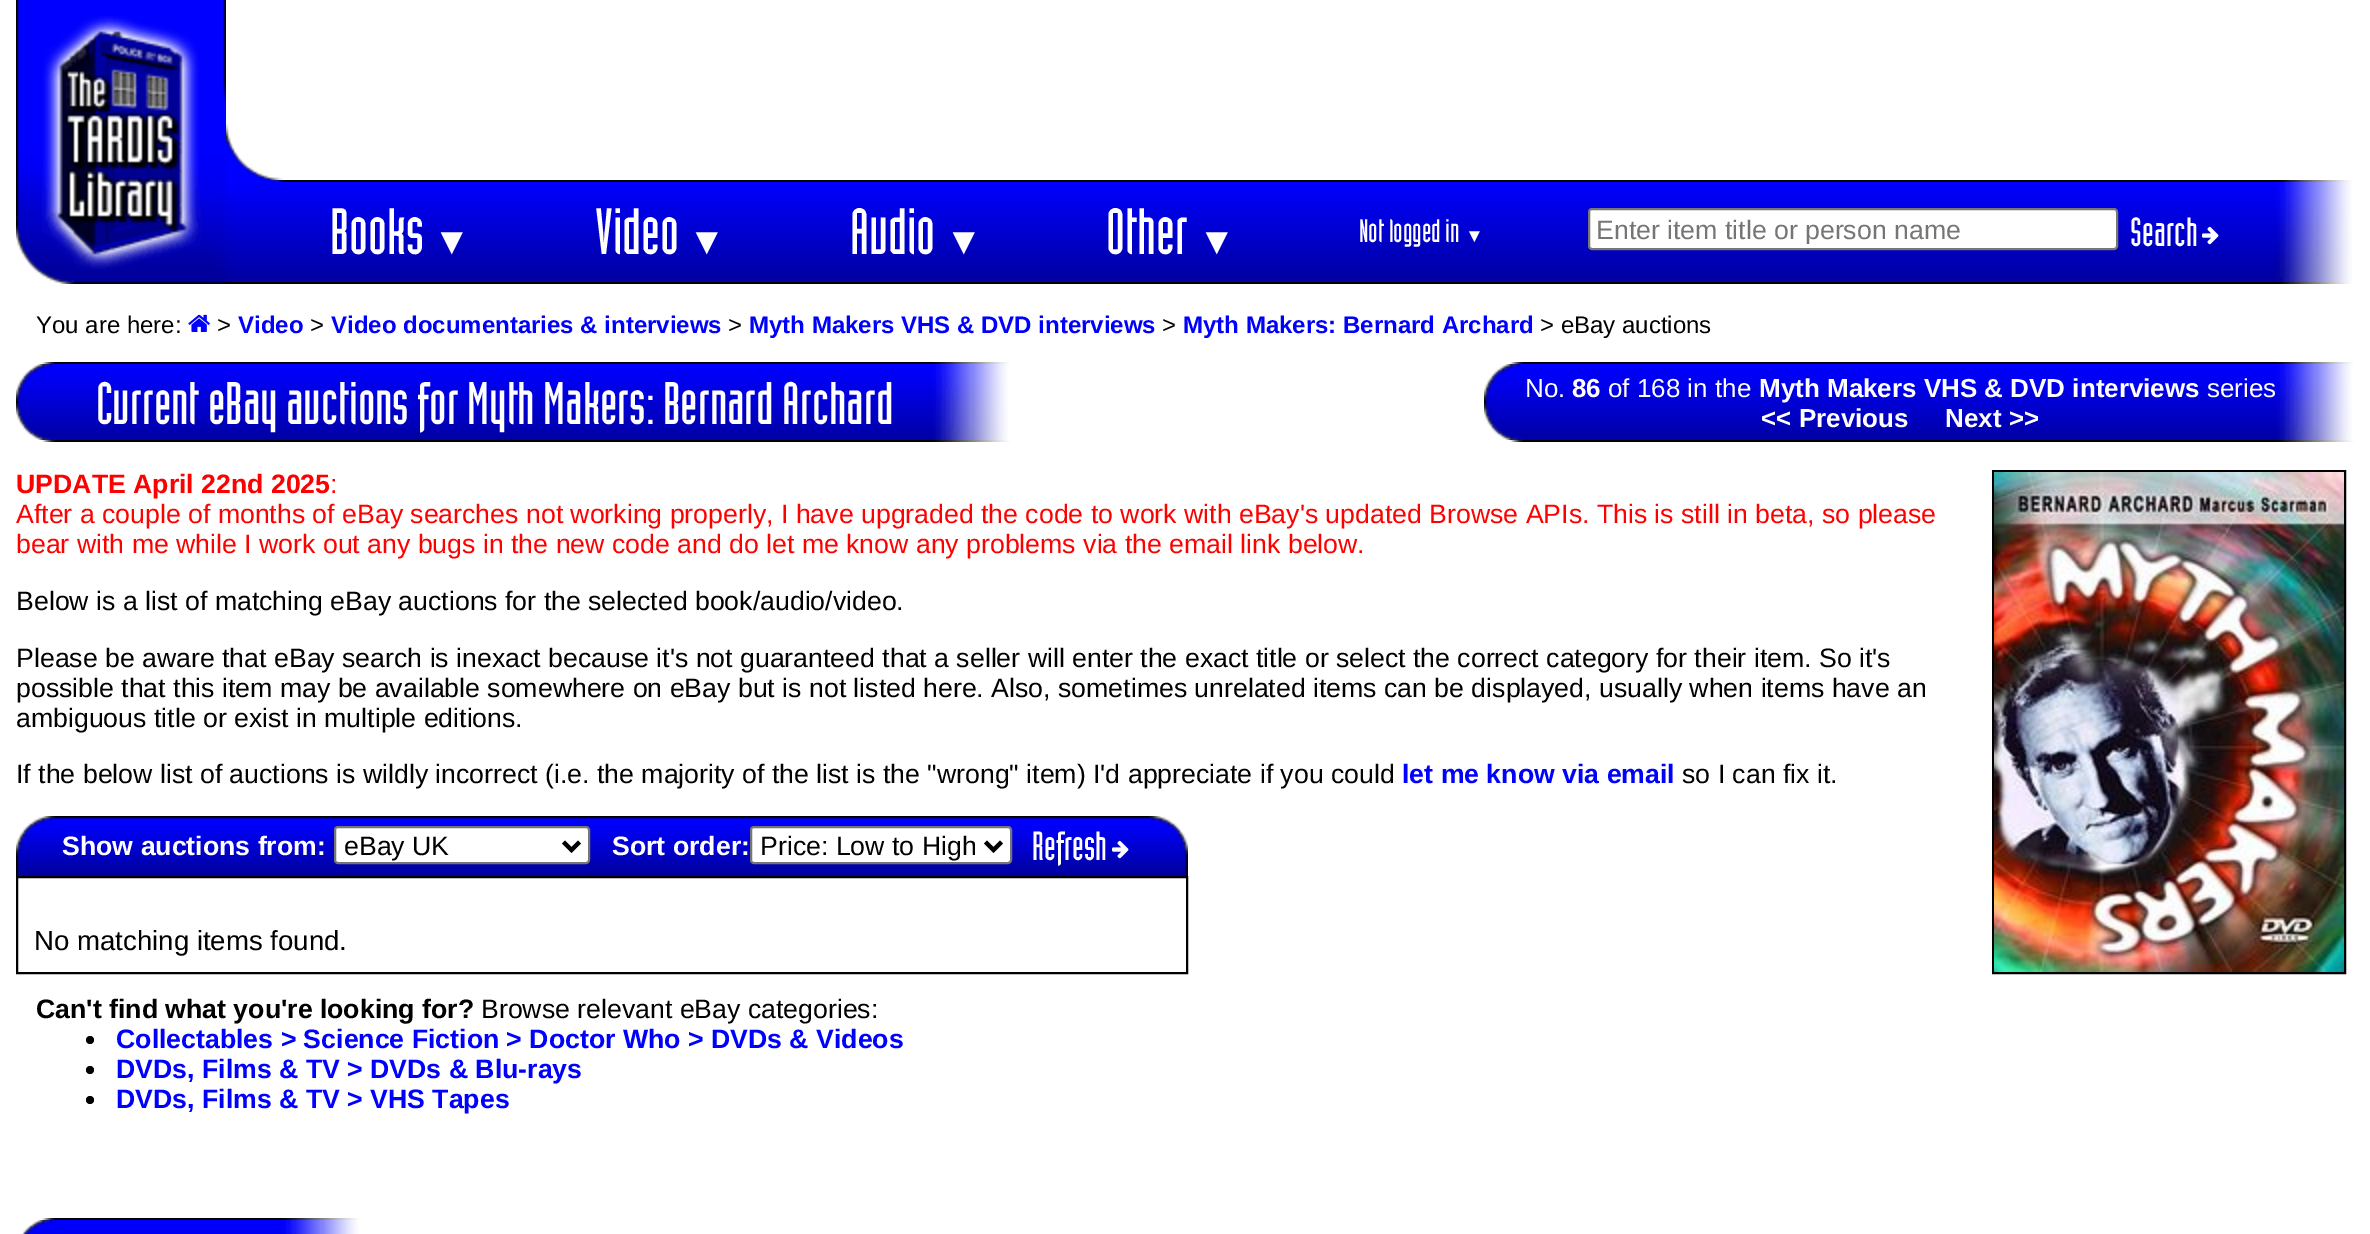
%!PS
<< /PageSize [2370 1234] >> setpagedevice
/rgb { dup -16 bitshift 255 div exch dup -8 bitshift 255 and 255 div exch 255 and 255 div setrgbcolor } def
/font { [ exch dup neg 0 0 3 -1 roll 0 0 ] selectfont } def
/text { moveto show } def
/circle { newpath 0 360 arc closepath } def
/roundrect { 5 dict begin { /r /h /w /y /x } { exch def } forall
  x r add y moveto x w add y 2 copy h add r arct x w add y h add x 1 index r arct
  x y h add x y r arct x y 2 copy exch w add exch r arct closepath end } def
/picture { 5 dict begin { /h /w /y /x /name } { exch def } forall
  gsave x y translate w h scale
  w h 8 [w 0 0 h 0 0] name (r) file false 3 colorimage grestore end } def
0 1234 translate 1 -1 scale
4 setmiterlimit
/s1 { /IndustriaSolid-Regular 64 font 16#FFFFFF rgb } def
/s2 { /LiberationSans-Regular 38 font 16#FFFFFF rgb } def
/s3 { /IndustriaSolid-Regular 32 font 16#FFFFFF rgb } def
/s4 { /LiberationSans-Regular 19 font 16#FFFFFF rgb } def
/s5 { /LiberationSans-Regular 26.67 font 16#757575 rgb } def
/s6 { /IndustriaSolid-Regular 40 font 16#FFFFFF rgb } def
/s7 { /LiberationSans-Regular 24 font 16#000000 rgb } def
/s8 { /LiberationSans-Bold 24 font 16#0000FF rgb } def
/s9 { /IndustriaSolid-Regular 58.7 font 16#FFFFFF rgb } def
/s10 { /LiberationSans-Regular 26 font 16#FFFFFF rgb } def
/s11 { /LiberationSans-Bold 26 font 16#FFFFFF rgb } def
/s12 { /LiberationSans-Bold 26.67 font 16#FF0000 rgb } def
/s13 { /LiberationSans-Regular 26.67 font 16#FF0000 rgb } def
/s14 { /LiberationSans-Regular 26.67 font 16#000000 rgb } def
/s15 { /LiberationSans-Bold 26.67 font 16#0000FF rgb } def
/s16 { /LiberationSans-Bold 26.67 font 16#FFFFFF rgb } def
/s17 { /LiberationSans-Regular 27.6 font 16#000000 rgb } def
/s18 { /LiberationSans-Bold 26.67 font 16#000000 rgb } def
16#FFFFFF rgb
0 0 2370 1234 rectfill
(pic1.raw) 16 0 210 284 picture
(pic2.raw) 41 16 161 256 picture
(pic3.raw) 226 123 57 57 picture
16#000000 rgb
287 180 1992 2 rectfill
(pic4.raw) 2279 180 75 2 picture
(pic5.raw) 226 180 61 2 picture
gsave 226 182 moveto 2276 182 lineto 2276 282 lineto 226 282 lineto closepath clip newpath
<< /ShadingType 2 /ColorSpace /DeviceRGB /Coords [1251 182 1251 282] /Extend [true true] /Function << /FunctionType 2 /Domain [0 1] /C0 [0 0 1] /C1 [0 0 0.627] /N 1 >> >> shfill grestore
s1
(Books) 330 254 text
s2
(▼) 433 254 text
s1
(Video) 595 254 text
s2
(▼) 688 254 text
s1
(Audio) 850 254 text
s2
(▼) 945 254 text
s1
(Other) 1106 254 text
s2
(▼) 1198 254 text
s3
(Not logged in) 1359 242 text
s4
(▼) 1465 242 text
1589 209 528 40 3 roundrect gsave fill grestore
16#767676 rgb
2 setlinewidth
stroke
gsave
1596 214 514 30 rectclip
s5
(Enter item title or person name) 1596 239 text
grestore
s6
(Search) 2130 246 text
(pic6.raw) 2202 226 17 19 picture
(pic7.raw) 2276 182 78 100 picture
16#000000 rgb
226 282 2053 2 rectfill
(pic4.raw) 2279 282 75 2 picture
s7
(You are here:) 36 333 text
(pic8.raw) 188 314 22 18 picture
(>) 217 333 text
s8
(Video) 238 333 text
s7
(>) 310 333 text
s8
(Video documentaries & interviews) 331 333 text
s7
(>) 728 333 text
s8
(Myth Makers VHS & DVD interviews) 749 333 text
s7
(>) 1162 333 text
s8
(Myth Makers: Bernard Archard) 1183 333 text
s7
(> eBay auctions) 1540 333 text
(pic9.raw) 16 362 40 2 picture
56 362 876 2 rectfill
(pic10.raw) 932 362 78 2 picture
(pic11.raw) 16 364 40 75 picture
(pic12.raw) 16 402 40 38 picture
(pic13.raw) 56 364 876 76 picture
s9
(Current eBay auctions for Myth Makers: Bernard Archard) 96 424 text
(pic14.raw) 932 364 78 76 picture
(pic9.raw) 16 440 40 2 picture
16#000000 rgb
56 440 876 2 rectfill
(pic10.raw) 932 440 78 2 picture
(pic9.raw) 1484 362 40 2 picture
1524 362 752 2 rectfill
(pic10.raw) 2276 362 78 2 picture
(pic11.raw) 1484 364 40 75 picture
(pic12.raw) 1484 402 40 38 picture
(pic15.raw) 1524 364 752 76 picture
s10
(No.) 1525 397 text
s11
(86) 1572 397 text
s10
(of 168 in the) 1608 397 text
s11
(Myth Makers VHS & DVD interviews) 1759 397 text
s10
(series) 2207 397 text
s11
(<< Previous) 1761 427 text
(Next >>) 1945 427 text
(pic14.raw) 2276 364 78 76 picture
(pic9.raw) 1484 440 40 2 picture
16#000000 rgb
1524 440 752 2 rectfill
(pic10.raw) 2276 440 78 2 picture
s12
(UPDATE April 22nd 2025) 16 493 text
s13
(:) 330 493 text
(After a couple of months of eBay searches not working properly, I have upgraded the code to work with eBay's updated Browse APIs. This is still in beta, so please) 16 523 text
(bear with me while I work out any bugs in the new code and do let me know any problems via the email link below.) 16 553 text
16#000000 rgb
1993 471 352 502 rectstroke
(pic16.raw) 1994 472 350 500 picture
(Below is a list of matching eBay auctions for the selected book/audio/video.) 16 610 text
(Please be aware that eBay search is inexact because it's not guaranteed that a seller will enter the exact title or select the correct category for their item. So it's) 16 667 text
(possible that this item may be available somewhere on eBay but is not listed here. Also, sometimes unrelated items can be displayed, usually when items have an) 16 697 text
(ambiguous title or exist in multiple editions.) 16 727 text
(If the below list of auctions is wildly incorrect \(i.e. the majority of the list is the "wrong" item\) I'd appreciate if you could) 16 783 text
s15
(let me know via email) 1402 783 text
s14
(so I can fix it.) 1682 783 text
(pic17.raw) 16 856 40 20 picture
(pic18.raw) 16 816 40 40 picture
(pic19.raw) 56 816 1092 60 picture
s16
(Show auctions from:) 62 855 text
335 827 254 36 3 roundrect gsave fill grestore
16#767676 rgb
stroke
16#000000 rgb
4 setlinewidth
563.5 842 moveto 571.5 850 lineto 579.5 842 lineto stroke
s14
(eBay UK) 344 855 text
s16
(Sort order:) 612 855 text
751 827 260 36 3 roundrect gsave fill grestore
16#767676 rgb
2 setlinewidth
stroke
16#000000 rgb
4 setlinewidth
985.5 842 moveto 993.5 850 lineto 1001.5 842 lineto stroke
s14
(Price: Low to High) 760 855 text
s6
(Refresh) 1032 860 text
(pic20.raw) 1112 840 17 19 picture
(pic21.raw) 1148 856 40 20 picture
(pic22.raw) 1148 816 40 40 picture
16#000000 rgb
2 setlinewidth
17 877 1170 96 rectstroke
s17
(No matching items found.) 34 950 text
s18
(Can't find what you're looking for?) 36 1018 text
s14
(Browse relevant eBay categories:) 481 1018 text
90 1040 4 circle fill
s15
(Collectables > Science Fiction > Doctor Who > DVDs & Videos) 116 1048 text
16#000000 rgb
90 1070 4 circle fill
s15
(DVDs, Films & TV > DVDs & Blu-rays) 116 1078 text
16#000000 rgb
90 1100 4 circle fill
s15
(DVDs, Films & TV > VHS Tapes) 116 1108 text
(pic9.raw) 16 1218 40 2 picture
16#000000 rgb
56 1218 226 2 rectfill
(pic10.raw) 282 1218 78 2 picture
(pic23.raw) 16 1220 40 14 picture
(pic24.raw) 56 1220 226 14 picture
(pic25.raw) 282 1220 78 14 picture
showpage
